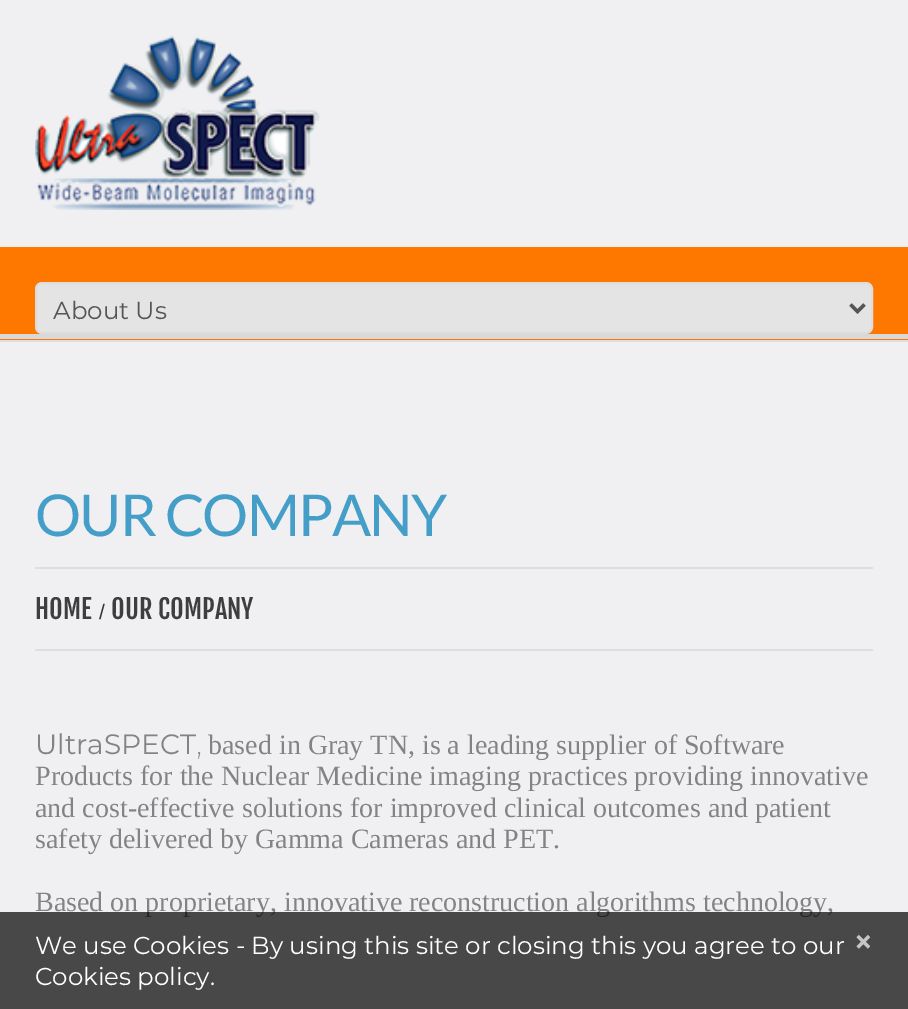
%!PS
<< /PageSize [908 1009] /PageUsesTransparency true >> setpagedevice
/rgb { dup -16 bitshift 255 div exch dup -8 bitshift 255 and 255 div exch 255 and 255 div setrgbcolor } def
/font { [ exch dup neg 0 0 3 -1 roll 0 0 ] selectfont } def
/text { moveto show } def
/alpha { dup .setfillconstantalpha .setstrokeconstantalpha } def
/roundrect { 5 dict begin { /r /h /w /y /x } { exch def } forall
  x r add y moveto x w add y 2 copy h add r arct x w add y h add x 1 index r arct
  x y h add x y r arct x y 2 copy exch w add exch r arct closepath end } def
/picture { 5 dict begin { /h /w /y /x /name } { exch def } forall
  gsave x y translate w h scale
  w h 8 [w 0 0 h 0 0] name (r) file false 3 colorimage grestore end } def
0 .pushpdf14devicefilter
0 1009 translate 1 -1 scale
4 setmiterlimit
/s1 { /Montserrat-Regular 24.5 font 16#555555 rgb } def
/s2 { /FjallaOne-Regular 26.25 font 16#403D40 rgb } def
/s3 { /LiberationSans-Regular 21 font 16#333333 rgb } def
/s4 { /Montserrat-Regular 28 font 16#838383 rgb } def
/s5 { /Montserrat-ExtraLight 33 font 16#838383 rgb } def
/s6 { /LiberationSerif-Regular 28 font 16#838383 rgb } def
/s7 { /Montserrat-Regular 24.5 font 16#FFFFFF rgb } def
/s8 { /Montserrat-SemiBold 35 font 16#C6C6C7 rgb } def
16#F0F0F2 rgb
0 0 908 1009 rectfill
(pic1.raw) 35 35 285 175 picture
16#FE7800 rgb
0 247 865 93 rectfill
16#D8D8D9 rgb
0 334 873 5 rectfill
16#FE7800 rgb
865 247 43 93 rectfill
16#E4E4E4 rgb
36 283 836 50 6 roundrect gsave fill grestore
16#DDDDDD rgb
2 setlinewidth
stroke
16#555555 rgb
3.5 setlinewidth
850.5 304.5 moveto 857.5 311.5 lineto 864.5 304.5 lineto stroke
s1
(About Us) 53 319 text
16#D8D8D9 rgb
865 334 43 5 rectfill
16#DEDEDE rgb
0 340 908 2 rectfill
/Lato-Regular 57.75 font
16#449EC8 rgb
35 536 moveto -1.75 0 (OUR COMPANY) ashow
16#DEDEDE rgb
35 567 838 2 rectfill
35 649 838 2 rectfill
s2
(HOME) 35 619 text
s3
(/) 99 619 text
s2
(OUR COMPANY) 111 619 text
s4
(UltraSPECT) 35 754 text
s5
(,) 196 754 text
s6
(based in Gray TN, is a leading supplier of Software) 208 754 text
(Products for the Nuclear Medicine imaging practices providing innovative) 35 785 text
(and cost-effective solutions for improved clinical outcomes and patient) 35 817 text
(safety delivered by Gamma Cameras and PET.) 35 848 text
(Based on proprietary, innovative reconstruction algorithms technology,) 35 911 text
0.7 alpha
16#000000 rgb
0 912 908 97 rectfill
1 alpha
s7
(We use Cookies - By using this site or closing this you agree to our) 35 954 text
s8
(×) 853 954 text
s7
(Cookies policy.) 35 985 text
.poppdf14devicefilter showpage
